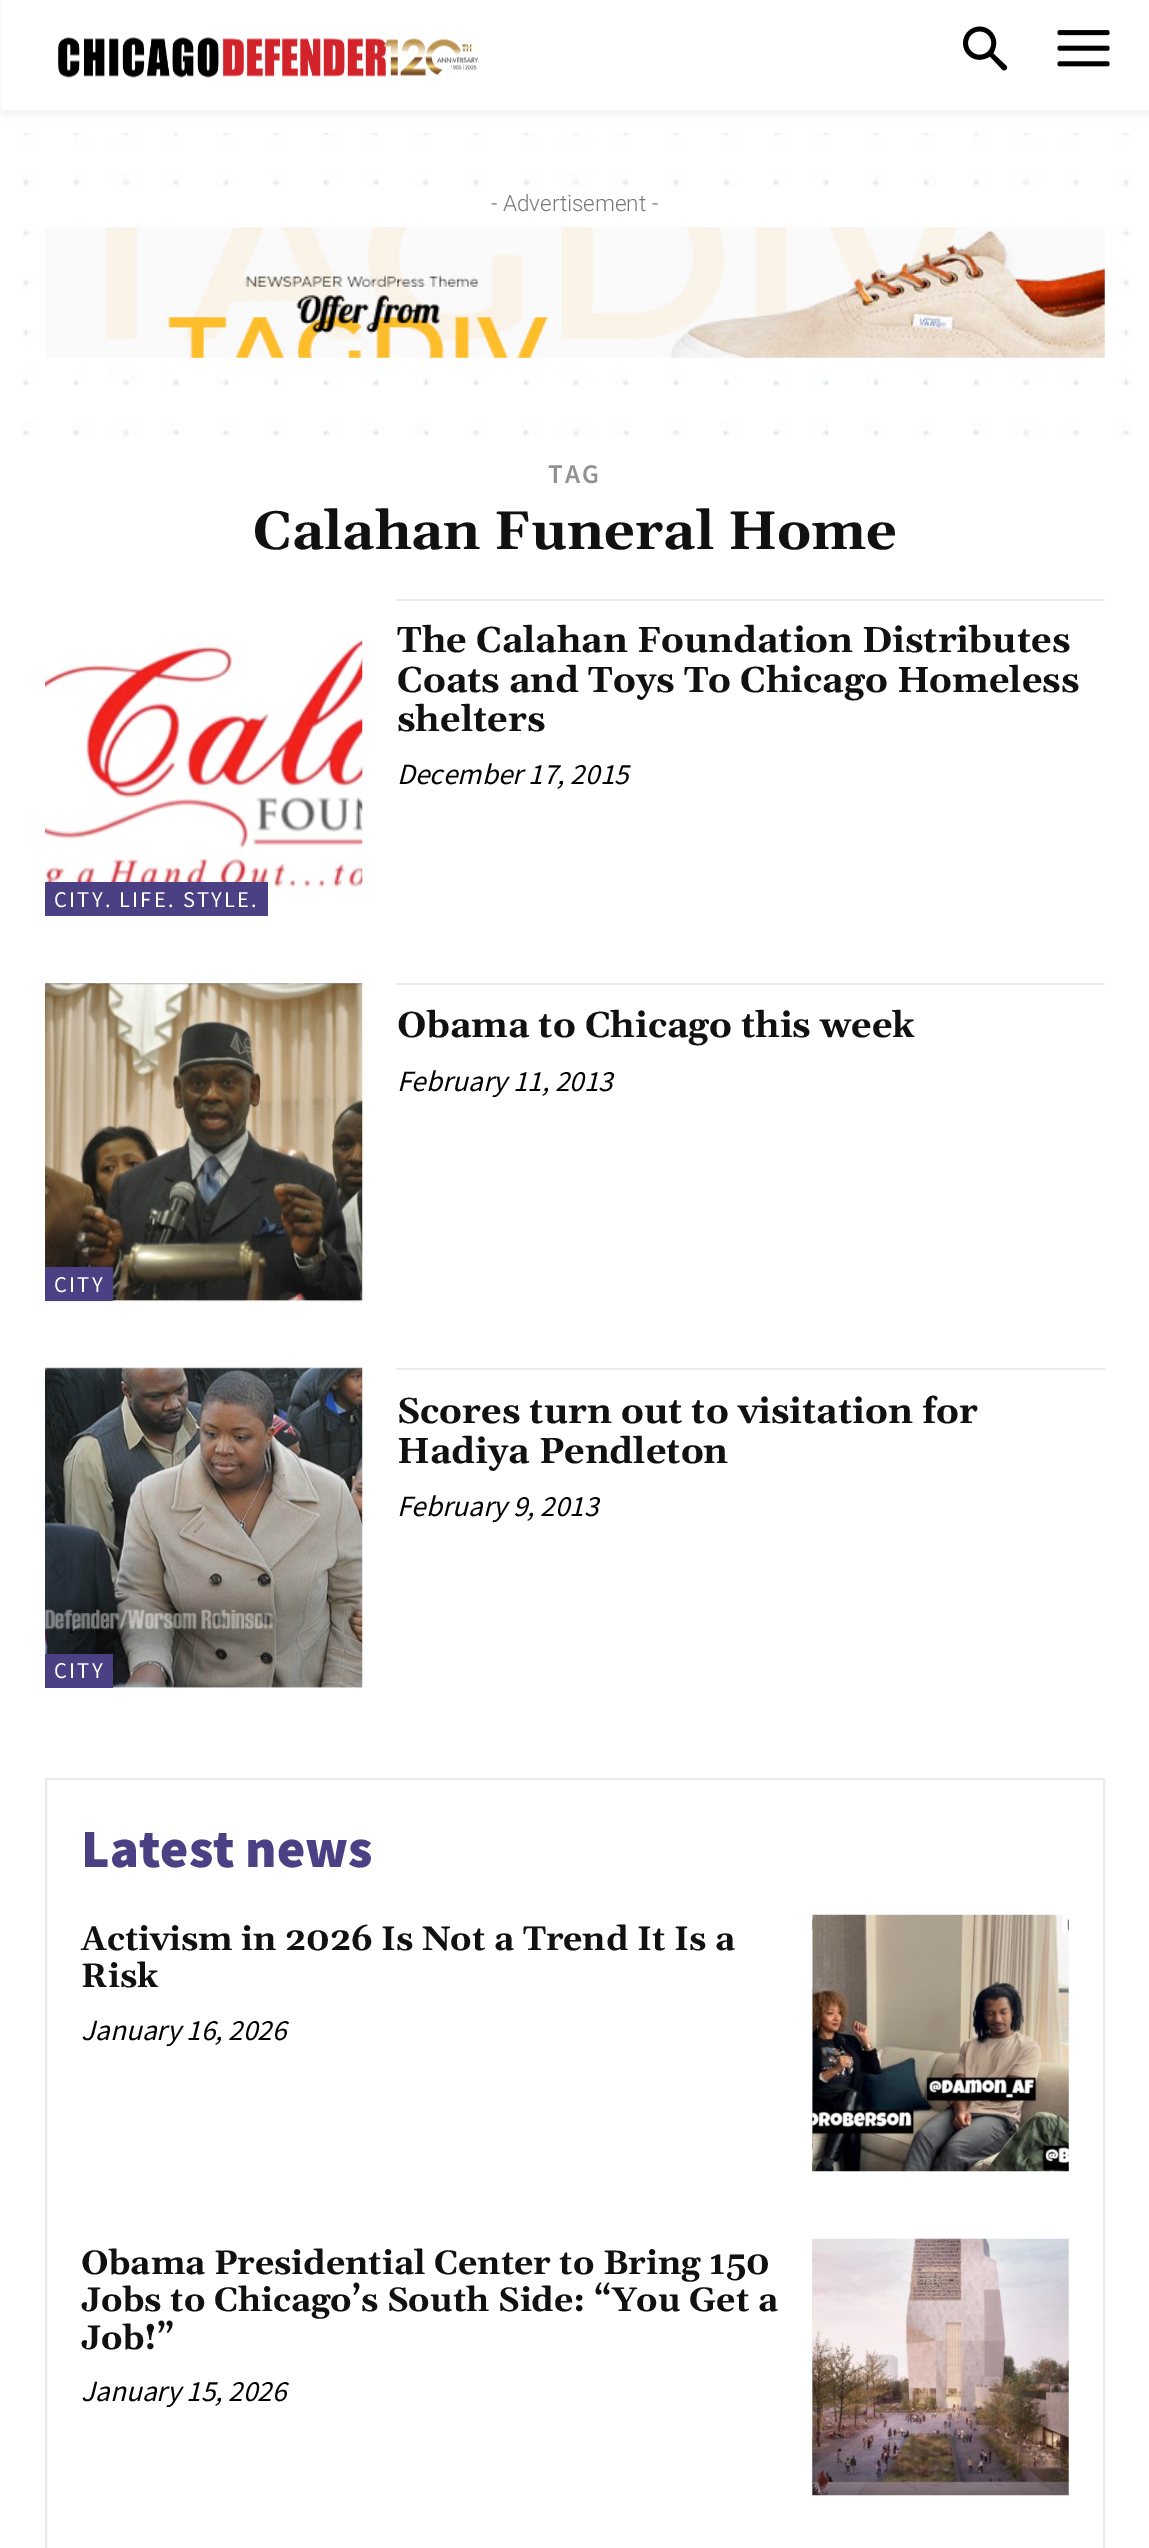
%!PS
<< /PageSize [1149 2548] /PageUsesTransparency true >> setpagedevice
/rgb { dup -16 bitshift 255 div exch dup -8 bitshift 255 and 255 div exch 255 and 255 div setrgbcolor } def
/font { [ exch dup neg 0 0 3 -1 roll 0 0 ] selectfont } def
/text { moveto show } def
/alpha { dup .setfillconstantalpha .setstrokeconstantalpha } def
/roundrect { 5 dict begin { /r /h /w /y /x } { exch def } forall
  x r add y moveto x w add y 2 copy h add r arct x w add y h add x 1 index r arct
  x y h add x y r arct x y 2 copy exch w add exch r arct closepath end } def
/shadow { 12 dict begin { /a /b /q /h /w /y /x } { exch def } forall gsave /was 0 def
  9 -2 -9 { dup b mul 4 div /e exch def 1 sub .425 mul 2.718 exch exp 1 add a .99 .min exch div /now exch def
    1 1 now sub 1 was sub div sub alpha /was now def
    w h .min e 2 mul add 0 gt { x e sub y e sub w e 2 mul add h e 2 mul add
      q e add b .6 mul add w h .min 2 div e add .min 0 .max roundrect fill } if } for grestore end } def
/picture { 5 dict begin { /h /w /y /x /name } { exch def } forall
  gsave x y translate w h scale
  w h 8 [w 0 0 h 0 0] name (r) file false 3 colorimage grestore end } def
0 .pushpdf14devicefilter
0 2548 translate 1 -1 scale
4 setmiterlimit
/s1 { /Roboto-Light 22.5 font 16#767676 rgb } def
/s2 { /Gelasio-Bold 54 font 16#111111 rgb } def
/s3 { /Gelasio-Bold 36 font 16#111111 rgb } def
/s4 { /SourceSansPro-Italic 29.25 font 16#000000 rgb } def
/s5 { /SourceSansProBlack-Black 54 font 16#4C4084 rgb } def
/s6 { /Gelasio-Bold 33.75 font 16#111111 rgb } def
16#FFFFFF rgb
0 0 1149 2548 rectfill
(pic1.raw) 58 37 420 41 picture
(pic2.raw) 963 26 45 45 picture
(pic3.raw) 1057 30 53 37 picture
gsave
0 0 moveto 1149 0 lineto 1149 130 lineto 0 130 lineto closepath 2 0 moveto 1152 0 lineto 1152 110 lineto 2 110 lineto closepath eoclip newpath
16#000000 rgb
2 5 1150 110 0 4.5 0.06 shadow
grestore
(pic4.raw) 21 133 1111 305 picture
s1
(- Advertisement -) 491 211 text
(pic5.raw) 45 227 1060 131 picture
/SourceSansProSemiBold-SemiBold 27 font
16#919191 rgb
548 483 moveto 2.25 0 (TAG) ashow
s2
(Calahan Funeral Home) 253 549 text
16#EAEAEA rgb
396 599 709 2 rectfill
s3
(The Calahan Foundation Distributes) 397 652 text
(Coats and Toys To Chicago Homeless) 397 692 text
(shelters) 397 731 text
s4
(December 17, 2015) 397 784 text
(pic6.raw) 45 638 318 259 picture
16#4C4084 rgb
45 882 223 34 rectfill
/SourceSansPro-Regular 22.5 font
16#FFFFFF rgb
54 907 moveto 2.25 0 (CITY. LIFE. STYLE.) ashow
16#EAEAEA rgb
396 983 709 2 rectfill
s3
(Obama to Chicago this week) 397 1037 text
s4
(February 11, 2013) 397 1091 text
(pic7.raw) 45 983 318 319 picture
16#4C4084 rgb
45 1267 68 34 rectfill
/SourceSansPro-Regular 22.5 font
16#FFFFFF rgb
54 1292 moveto 2.25 0 (CITY) ashow
16#EAEAEA rgb
396 1368 709 2 rectfill
s3
(Scores turn out to visitation for) 397 1423 text
(Hadiya Pendleton) 397 1463 text
s4
(February 9, 2013) 397 1516 text
(pic8.raw) 45 1367 318 321 picture
16#4C4084 rgb
45 1654 68 34 rectfill
/SourceSansPro-Regular 22.5 font
16#FFFFFF rgb
54 1678 moveto 2.25 0 (CITY) ashow
16#EAEAEA rgb
2 setlinewidth
46 1779 1058 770 rectstroke
s5
(Latest news) 81 1867 text
s6
(Activism in 2026 Is Not a Trend It Is a) 81 1950 text
(Risk) 81 1987 text
s4
(January 16, 2026) 81 2040 text
(pic9.raw) 812 1914 257 258 picture
s6
(Obama Presidential Center to Bring 150) 81 2274 text
(Jobs to Chicago’s South Side: “You Get a) 81 2311 text
(Job!”) 81 2349 text
s4
(January 15, 2026) 81 2401 text
(pic10.raw) 812 2238 257 258 picture
.poppdf14devicefilter showpage
